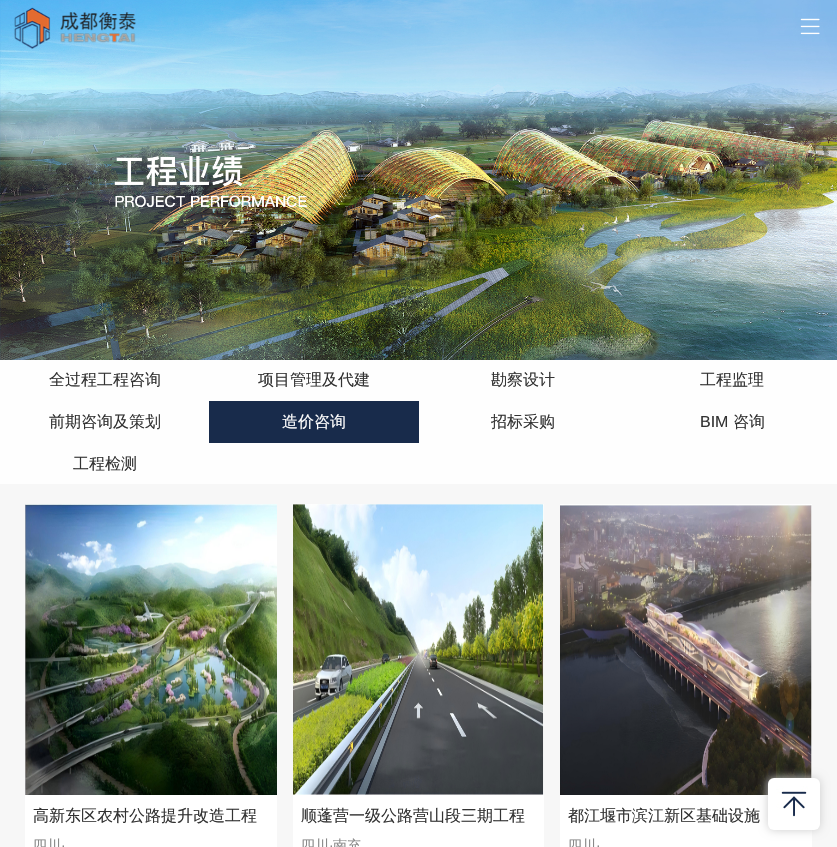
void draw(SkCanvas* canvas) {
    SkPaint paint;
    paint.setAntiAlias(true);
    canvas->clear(0xFFF7F7F7);
    canvas->drawImageRect(SkImages::DeferredFromEncodedData(SkData::MakeFromFileName("img1.png")), SkRect::MakeXYWH(0, 0, 837, 360), SkSamplingOptions());
    canvas->drawImageRect(SkImages::DeferredFromEncodedData(SkData::MakeFromFileName("img2.png")), SkRect::MakeXYWH(14, 7, 122, 42), SkSamplingOptions());
    canvas->drawImageRect(SkImages::DeferredFromEncodedData(SkData::MakeFromFileName("img3.png")), SkRect::MakeXYWH(800, 18, 20, 17), SkSamplingOptions());
    paint.setColor(0xFFFEFEFE);
    canvas->drawRect(SkRect::MakeXYWH(0, 360, 837, 124), paint);
    SkFont font1(fontMgr->matchFamilyStyle("WenQuanYi Zen Hei", SkFontStyle(500, SkFontStyle::kNormal_Width, SkFontStyle::kUpright_Slant)), 16);
    font1.setSubpixel(true);
    paint.setColor(0xFF333333);
    canvas->drawString("全过程工程咨询", 49, 385, font1, paint);
    canvas->drawString("项目管理及代建", 258, 385, font1, paint);
    canvas->drawString("勘察设计", 491, 385, font1, paint);
    canvas->drawString("工程监理", 700, 385, font1, paint);
    canvas->drawString("前期咨询及策划", 49, 427, font1, paint);
    paint.setColor(0xFF182B4B);
    canvas->drawRect(SkRect::MakeXYWH(209, 401, 210, 42), paint);
    paint.setColor(0xFFFFFFFF);
    canvas->drawString("造价咨询", 282, 427, font1, paint);
    paint.setColor(0xFF333333);
    canvas->drawString("招标采购", 491, 427, font1, paint);
    SkFont font2(fontMgr->matchFamilyStyle("Liberation Sans", SkFontStyle::Normal()), 16);
    font2.setSubpixel(true);
    canvas->drawString("BIM", 700, 427, font2, paint);
    canvas->drawString("咨询", 733, 427, font1, paint);
    canvas->drawString("工程检测", 73, 469, font1, paint);
    canvas->drawImageRect(SkImages::DeferredFromEncodedData(SkData::MakeFromFileName("img4.png")), SkRect::MakeXYWH(25, 504, 252, 291), SkSamplingOptions());
    paint.setColor(0xFFFFFFFF);
    canvas->drawRect(SkRect::MakeXYWH(25, 795, 252, 52), paint);
    paint.setColor(0xFF333333);
    canvas->drawString("高新东区农村公路提升改造工程", 33, 821, font1, paint);
    SkFont font3(fontMgr->matchFamilyStyle("WenQuanYi Zen Hei", SkFontStyle(500, SkFontStyle::kNormal_Width, SkFontStyle::kUpright_Slant)), 14);
    font3.setSubpixel(true);
    paint.setColor(0xFF888888);
    canvas->drawString("四川", 33, 850, font3, paint);
    SkFont font4(fontMgr->matchFamilyStyle("Liberation Sans", SkFontStyle::Normal()), 14);
    font4.setSubpixel(true);
    canvas->drawString("·", 61, 850, font4, paint);
    canvas->drawImageRect(SkImages::DeferredFromEncodedData(SkData::MakeFromFileName("img5.png")), SkRect::MakeXYWH(293, 504, 251, 291), SkSamplingOptions());
    paint.setColor(0xFFFFFFFF);
    canvas->drawRect(SkRect::MakeXYWH(293, 795, 251, 52), paint);
    paint.setColor(0xFF333333);
    canvas->drawString("顺蓬营一级公路营山段三期工程", 301, 821, font1, paint);
    paint.setColor(0xFF888888);
    canvas->drawString("四川", 301, 850, font3, paint);
    canvas->drawString("·", 329, 850, font4, paint);
    canvas->drawString("南充", 333, 850, font3, paint);
    canvas->drawImageRect(SkImages::DeferredFromEncodedData(SkData::MakeFromFileName("img6.png")), SkRect::MakeXYWH(560, 504, 252, 291), SkSamplingOptions());
    paint.setColor(0xFFFFFFFF);
    canvas->drawRect(SkRect::MakeXYWH(560, 795, 252, 52), paint);
    paint.setColor(0xFF333333);
    canvas->drawString("都江堰市滨江新区基础设施", 568, 821, font1, paint);
    paint.setColor(0xFF888888);
    canvas->drawString("四川", 568, 850, font3, paint);
    canvas->drawString("·", 596, 850, font4, paint);
    paint.setColor(0xFFCCCCCC);
    paint.setMaskFilter(SkMaskFilter::MakeBlur(kNormal_SkBlurStyle, 5));
    canvas->drawRoundRect(SkRect::MakeXYWH(768, 778, 52, 52), 6, 6, paint);
    paint.setMaskFilter(nullptr);
    canvas->drawImageRect(SkImages::DeferredFromEncodedData(SkData::MakeFromFileName("img7.png")), SkRect::MakeXYWH(768, 778, 52, 52), SkSamplingOptions());
}
